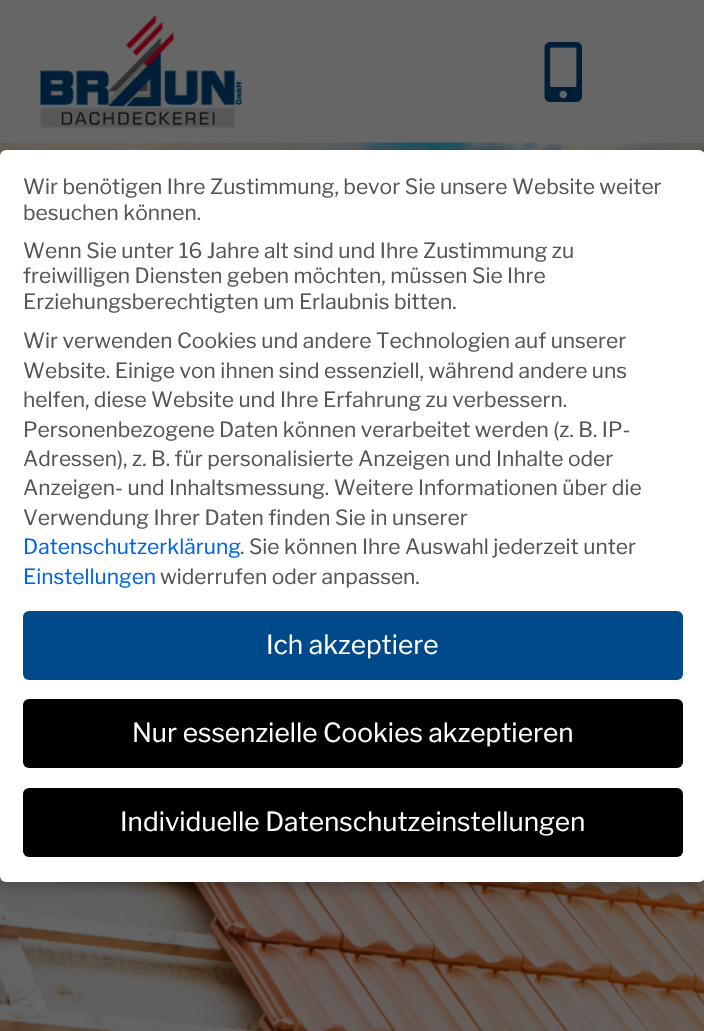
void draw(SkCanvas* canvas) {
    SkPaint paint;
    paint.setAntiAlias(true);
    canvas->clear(0xFF666666);
    canvas->drawImageRect(SkImages::DeferredFromEncodedData(SkData::MakeFromFileName("img1.png")), SkRect::MakeXYWH(40, 15, 202, 113), SkSamplingOptions());
    canvas->drawImageRect(SkImages::DeferredFromEncodedData(SkData::MakeFromFileName("img2.png")), SkRect::MakeXYWH(544, 42, 38, 60), SkSamplingOptions());
    canvas->drawImageRect(SkImages::DeferredFromEncodedData(SkData::MakeFromFileName("img3.png")), SkRect::MakeXYWH(0, 142, 704, 889), SkSamplingOptions());
    paint.setColor(0x33000000);
    paint.setMaskFilter(SkMaskFilter::MakeBlur(kNormal_SkBlurStyle, 6));
    canvas->drawRoundRect(SkRect::MakeXYWH(0, 156, 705, 732), 6, 6, paint);
    paint.setMaskFilter(nullptr);
    paint.setColor(0xFFFFFFFF);
    canvas->drawRoundRect(SkRect::MakeXYWH(0, 150, 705, 732), 6, 6, paint);
    SkFont font1(fontMgr->matchFamilyStyle("Libre Franklin", SkFontStyle::Normal()), 21);
    font1.setSubpixel(true);
    paint.setColor(0xFF555555);
    canvas->drawString("Wir benötigen Ihre Zustimmung, bevor Sie unsere Website weiter", 23, 194, font1, paint);
    canvas->drawString("besuchen können.", 23, 220, font1, paint);
    canvas->drawString("Wenn Sie unter 16 Jahre alt sind und Ihre Zustimmung zu", 23, 258, font1, paint);
    canvas->drawString("freiwilligen Diensten geben möchten, müssen Sie Ihre", 23, 283, font1, paint);
    canvas->drawString("Erziehungsberechtigten um Erlaubnis bitten.", 23, 309, font1, paint);
    canvas->drawString("Wir verwenden Cookies und andere Technologien auf unserer", 23, 348, font1, paint);
    canvas->drawString("Website. Einige von ihnen sind essenziell, während andere uns", 23, 378, font1, paint);
    canvas->drawString("helfen, diese Website und Ihre Erfahrung zu verbessern.", 23, 407, font1, paint);
    canvas->drawString("Personenbezogene Daten können verarbeitet werden (z. B. IP-", 23, 437, font1, paint);
    canvas->drawString("Adressen), z. B. für personalisierte Anzeigen und Inhalte oder", 23, 466, font1, paint);
    canvas->drawString("Anzeigen- und Inhaltsmessung. Weitere Informationen über die", 23, 495, font1, paint);
    canvas->drawString("Verwendung Ihrer Daten finden Sie in unserer", 23, 525, font1, paint);
    paint.setColor(0xFF0063E3);
    canvas->drawString("Datenschutzerklärung", 23, 554, font1, paint);
    paint.setColor(0xFF555555);
    canvas->drawString(". Sie können Ihre Auswahl jederzeit unter", 240, 554, font1, paint);
    paint.setColor(0xFF0063E3);
    canvas->drawString("Einstellungen", 23, 584, font1, paint);
    paint.setColor(0xFF555555);
    canvas->drawString("widerrufen oder anpassen.", 160, 584, font1, paint);
    paint.setColor(0xFF004A8B);
    canvas->drawRoundRect(SkRect::MakeXYWH(23, 611, 660, 69), 6, 6, paint);
    SkFont font2(fontMgr->matchFamilyStyle("Libre Franklin", SkFontStyle::Normal()), 26.25f);
    font2.setSubpixel(true);
    paint.setColor(0xFFFFFFFF);
    canvas->drawString("Ich akzeptiere", 266, 654, font2, paint);
    paint.setColor(0xFF000000);
    canvas->drawRoundRect(SkRect::MakeXYWH(23, 699, 660, 69), 6, 6, paint);
    paint.setColor(0xFFFFFFFF);
    canvas->drawString("Nur essenzielle Cookies akzeptieren", 132, 742, font2, paint);
    paint.setColor(0xFF000000);
    canvas->drawRoundRect(SkRect::MakeXYWH(23, 788, 660, 69), 6, 6, paint);
    paint.setColor(0xFFFFFFFF);
    canvas->drawString("Individuelle Datenschutzeinstellungen", 120, 831, font2, paint);
}
